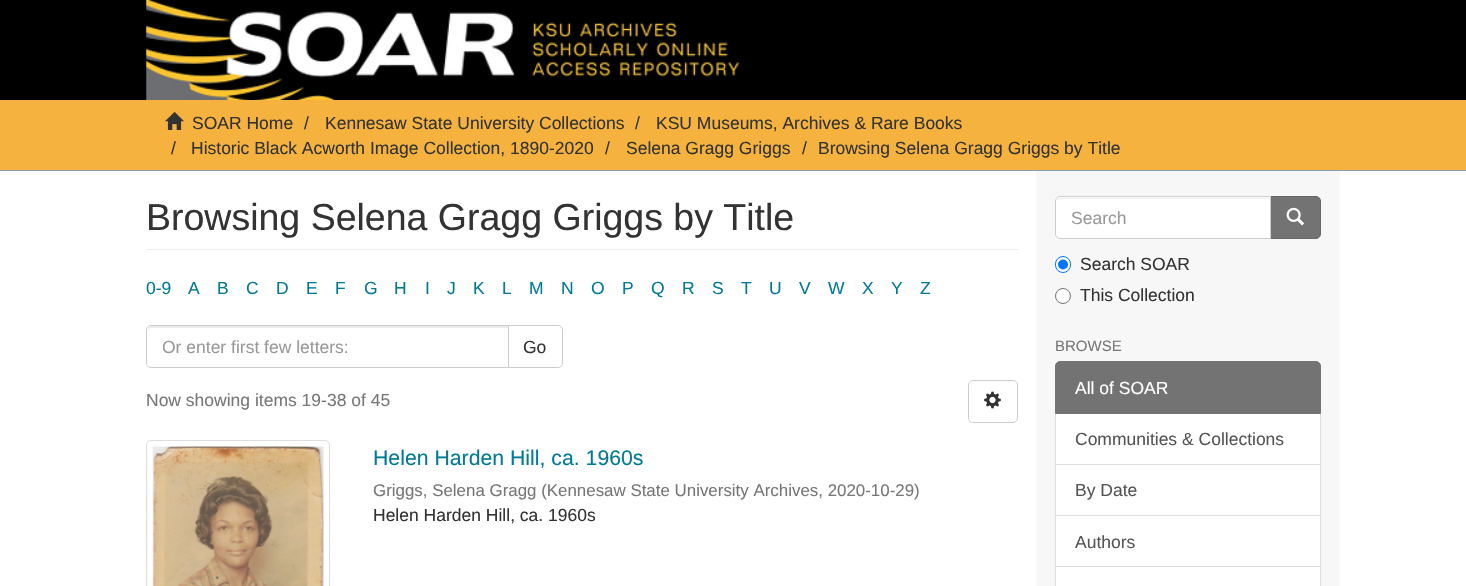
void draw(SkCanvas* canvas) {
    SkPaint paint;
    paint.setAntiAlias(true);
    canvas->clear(0xFFFFFFFF);
    paint.setColor(0xFF000000);
    canvas->drawRect(SkRect::MakeXYWH(0, 0, 1466, 100), paint);
    canvas->drawImageRect(SkImages::DeferredFromEncodedData(SkData::MakeFromFileName("img1.png")), SkRect::MakeXYWH(146, 0, 594, 100), SkSamplingOptions());
    paint.setColor(0xFFF5B23E);
    canvas->drawRect(SkRect::MakeXYWH(0, 100, 1466, 70), paint);
    paint.setColor(0xFF8B9EB2);
    canvas->drawRect(SkRect::MakeXYWH(0, 170, 1466, 1), paint);
    canvas->drawImageRect(SkImages::DeferredFromEncodedData(SkData::MakeFromFileName("img2.png")), SkRect::MakeXYWH(165, 111, 19, 19), SkSamplingOptions());
    SkFont font1(fontMgr->matchFamilyStyle("Liberation Sans", SkFontStyle::Normal()), 17.5f);
    font1.setSubpixel(true);
    paint.setColor(0xFF333333);
    canvas->drawString("SOAR Home", 192, 129, font1, paint);
    canvas->drawString("/", 304, 129, font1, paint);
    canvas->drawString("Kennesaw State University Collections", 325, 129, font1, paint);
    canvas->drawString("/", 635, 129, font1, paint);
    canvas->drawString("KSU Museums, Archives & Rare Books", 656, 129, font1, paint);
    canvas->drawString("/", 171, 154, font1, paint);
    canvas->drawString("Historic Black Acworth Image Collection, 1890-2020", 191, 154, font1, paint);
    canvas->drawString("/", 605, 154, font1, paint);
    canvas->drawString("Selena Gragg Griggs", 626, 154, font1, paint);
    canvas->drawString("/", 802, 154, font1, paint);
    canvas->drawString("Browsing Selena Gragg Griggs by Title", 818, 154, font1, paint);
    paint.setColor(0xFFF7F7F7);
    canvas->drawRect(SkRect::MakeXYWH(1036, 171, 304, 415), paint);
    paint.setColor(0xFFEEEEEE);
    canvas->drawRect(SkRect::MakeXYWH(146, 249, 872, 1), paint);
    SkFont font2(fontMgr->matchFamilyStyle("Liberation Sans", SkFontStyle::Normal()), 37.5f);
    font2.setSubpixel(true);
    paint.setColor(0xFF333333);
    canvas->drawString("Browsing Selena Gragg Griggs by Title", 146, 230, font2, paint);
    paint.setColor(0xFF007A95);
    canvas->drawString("0-9", 146, 294, font1, paint);
    canvas->drawString("A", 188, 294, font1, paint);
    canvas->drawString("B", 217, 294, font1, paint);
    canvas->drawString("C", 246, 294, font1, paint);
    canvas->drawString("D", 276, 294, font1, paint);
    canvas->drawString("E", 306, 294, font1, paint);
    canvas->drawString("F", 335, 294, font1, paint);
    canvas->drawString("G", 364, 294, font1, paint);
    canvas->drawString("H", 394, 294, font1, paint);
    canvas->drawString("I", 425, 294, font1, paint);
    canvas->drawString("J", 447, 294, font1, paint);
    canvas->drawString("K", 473, 294, font1, paint);
    canvas->drawString("L", 502, 294, font1, paint);
    canvas->drawString("M", 529, 294, font1, paint);
    canvas->drawString("N", 561, 294, font1, paint);
    canvas->drawString("O", 591, 294, font1, paint);
    canvas->drawString("P", 622, 294, font1, paint);
    canvas->drawString("Q", 651, 294, font1, paint);
    canvas->drawString("R", 682, 294, font1, paint);
    canvas->drawString("S", 712, 294, font1, paint);
    canvas->drawString("T", 741, 294, font1, paint);
    canvas->drawString("U", 769, 294, font1, paint);
    canvas->drawString("V", 799, 294, font1, paint);
    canvas->drawString("W", 828, 294, font1, paint);
    canvas->drawString("X", 862, 294, font1, paint);
    canvas->drawString("Y", 891, 294, font1, paint);
    canvas->drawString("Z", 920, 294, font1, paint);
    paint.setStyle(SkPaint::kStroke_Style);
    paint.setStrokeWidth(1);
    paint.setColor(0xFFCCCCCC);
    canvas->drawPath(SkPathBuilder().moveTo(508.5f, 325.5f).lineTo(558, 325.5f).cubicTo(560.5f, 325.5f, 562.5f, 327.5f, 562.5f, 330).lineTo(562.5f, 363).cubicTo(562.5f, 365.5f, 560.5f, 367.5f, 558, 367.5f).lineTo(508.5f, 367.5f).close().detach(), paint);
    paint.setStyle(SkPaint::kFill_Style);
    paint.setColor(0xFFFFFFFF);
    canvas->drawPath(SkPathBuilder().moveTo(151, 325).lineTo(509, 325).lineTo(509, 368).lineTo(151, 368).cubicTo(148, 368, 146, 366, 146, 363).lineTo(146, 330).cubicTo(146, 327, 148, 325, 151, 325).close().detach(), paint);
    paint.setColor(0xFFECECEC);
    canvas->drawPath(SkPathBuilder().moveTo(151, 328).lineTo(508, 328).lineTo(508, 326).lineTo(152, 326).cubicTo(149, 326, 148, 328, 148, 331).cubicTo(148, 329, 149, 328, 151, 328).close().detach(), paint);
    paint.setStyle(SkPaint::kStroke_Style);
    paint.setColor(0xFFCCCCCC);
    canvas->drawPath(SkPathBuilder().moveTo(151, 325.5f).lineTo(508.5f, 325.5f).lineTo(508.5f, 367.5f).lineTo(151, 367.5f).cubicTo(148.5f, 367.5f, 146.5f, 365.5f, 146.5f, 363).lineTo(146.5f, 330).cubicTo(146.5f, 327.5f, 148.5f, 325.5f, 151, 325.5f).close().detach(), paint);
    canvas->save();
    canvas->clipRect(SkRect::MakeXYWH(163, 336, 330, 20));
    paint.setStyle(SkPaint::kFill_Style);
    paint.setColor(0xFF999999);
    canvas->drawString("Or enter first few letters:", 162, 353, font1, paint);
    canvas->restore();
    paint.setColor(0xFF333333);
    canvas->drawString("Go", 523, 353, font1, paint);
    paint.setColor(0xFF777777);
    canvas->drawString("Now showing items 19-38 of 45", 146, 406, font1, paint);
    paint.setStyle(SkPaint::kStroke_Style);
    paint.setColor(0xFFCCCCCC);
    canvas->drawRoundRect(SkRect::MakeXYWH(968.5f, 380.5f, 49, 42), 4.5f, 4.5f, paint);
    canvas->drawImageRect(SkImages::DeferredFromEncodedData(SkData::MakeFromFileName("img3.png")), SkRect::MakeXYWH(984, 391, 17, 18), SkSamplingOptions());
    paint.setColor(0xFFDDDDDD);
    canvas->drawRoundRect(SkRect::MakeXYWH(146.5f, 440.5f, 183, 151), 4.5f, 4.5f, paint);
    canvas->drawImageRect(SkImages::DeferredFromEncodedData(SkData::MakeFromFileName("img4.png")), SkRect::MakeXYWH(152, 446, 172, 140), SkSamplingOptions());
    SkFont font3(fontMgr->matchFamilyStyle("Liberation Sans", SkFontStyle::Normal()), 21.25f);
    font3.setSubpixel(true);
    paint.setStyle(SkPaint::kFill_Style);
    paint.setColor(0xFF007A95);
    canvas->drawString("Helen Harden Hill, ca. 1960s", 373, 465, font3, paint);
    SkFont font4(fontMgr->matchFamilyStyle("Liberation Sans", SkFontStyle::Normal()), 16.9f);
    font4.setSubpixel(true);
    paint.setColor(0xFF777777);
    canvas->drawString("Griggs, Selena Gragg (Kennesaw State University Archives, 2020-10-29)", 373, 496, font4, paint);
    paint.setColor(0xFF333333);
    canvas->drawString("Helen Harden Hill, ca. 1960s", 373, 521, font1, paint);
    paint.setColor(0xFF737373);
    canvas->drawPath(SkPathBuilder().moveTo(1270.5f, 196.5f).lineTo(1316, 196.5f).cubicTo(1318.5f, 196.5f, 1320.5f, 198.5f, 1320.5f, 201).lineTo(1320.5f, 234).cubicTo(1320.5f, 236.5f, 1318.5f, 238.5f, 1316, 238.5f).lineTo(1270.5f, 238.5f).close().detach(), paint);
    paint.setStyle(SkPaint::kStroke_Style);
    paint.setColor(0xFF666666);
    canvas->drawPath(SkPathBuilder().moveTo(1270.5f, 196.5f).lineTo(1316, 196.5f).cubicTo(1318.5f, 196.5f, 1320.5f, 198.5f, 1320.5f, 201).lineTo(1320.5f, 234).cubicTo(1320.5f, 236.5f, 1318.5f, 238.5f, 1316, 238.5f).lineTo(1270.5f, 238.5f).close().detach(), paint);
    paint.setStyle(SkPaint::kFill_Style);
    paint.setColor(0xFFFFFFFF);
    canvas->drawPath(SkPathBuilder().moveTo(1060, 196).lineTo(1271, 196).lineTo(1271, 239).lineTo(1060, 239).cubicTo(1057, 239, 1055, 237, 1055, 234).lineTo(1055, 201).cubicTo(1055, 198, 1057, 196, 1060, 196).close().detach(), paint);
    paint.setColor(0xFFECECEC);
    canvas->drawPath(SkPathBuilder().moveTo(1060, 199).lineTo(1270, 199).lineTo(1270, 198).lineTo(1060, 198).cubicTo(1058, 198, 1056, 200, 1056, 202).cubicTo(1056, 200, 1058, 199, 1060, 199).close().detach(), paint);
    paint.setStyle(SkPaint::kStroke_Style);
    paint.setColor(0xFFCCCCCC);
    canvas->drawPath(SkPathBuilder().moveTo(1060, 196.5f).lineTo(1270.5f, 196.5f).lineTo(1270.5f, 238.5f).lineTo(1060, 238.5f).cubicTo(1057.5f, 238.5f, 1055.5f, 236.5f, 1055.5f, 234).lineTo(1055.5f, 201).cubicTo(1055.5f, 198.5f, 1057.5f, 196.5f, 1060, 196.5f).close().detach(), paint);
    paint.setStyle(SkPaint::kFill_Style);
    paint.setColor(0xFF999999);
    canvas->drawString("Search", 1071, 224, font1, paint);
    canvas->drawImageRect(SkImages::DeferredFromEncodedData(SkData::MakeFromFileName("img5.png")), SkRect::MakeXYWH(1286, 207, 18, 19), SkSamplingOptions());
    paint.setColor(0xFFFFFFFF);
    canvas->drawRoundRect(SkRect::MakeXYWH(1055.5f, 256.5f, 15, 16), 7.5f, 7.5f, paint);
    paint.setStyle(SkPaint::kStroke_Style);
    paint.setColor(0xFF0075FF);
    canvas->drawRoundRect(SkRect::MakeXYWH(1055.5f, 256.5f, 15, 16), 7.5f, 7.5f, paint);
    paint.setStyle(SkPaint::kFill_Style);
    canvas->drawCircle(1063, 264.5f, 5, paint);
    paint.setColor(0xFF333333);
    canvas->drawString("Search SOAR", 1080, 270, font1, paint);
    paint.setColor(0xFFFFFFFF);
    canvas->drawCircle(1063, 296, 7.5f, paint);
    paint.setStyle(SkPaint::kStroke_Style);
    paint.setColor(0xFF767676);
    canvas->drawCircle(1063, 296, 7.5f, paint);
    paint.setStyle(SkPaint::kFill_Style);
    paint.setColor(0xFF333333);
    canvas->drawString("This Collection", 1080, 301, font1, paint);
    SkFont font5(fontMgr->matchFamilyStyle("Liberation Sans", SkFontStyle::Normal()), 15);
    font5.setSubpixel(true);
    paint.setColor(0xFF777777);
    canvas->drawString("BROWSE", 1055, 351, font5, paint);
    paint.setColor(0xFFFFFFFF);
    canvas->drawRect(SkRect::MakeXYWH(1055.5f, 413.5f, 265, 51), paint);
    paint.setStyle(SkPaint::kStroke_Style);
    paint.setColor(0xFFDDDDDD);
    canvas->drawRect(SkRect::MakeXYWH(1055.5f, 413.5f, 265, 51), paint);
    paint.setStyle(SkPaint::kFill_Style);
    paint.setColor(0xFF737373);
    canvas->drawPath(SkPathBuilder().moveTo(1060, 361.5f).lineTo(1316, 361.5f).cubicTo(1318.5f, 361.5f, 1320.5f, 363.5f, 1320.5f, 366).lineTo(1320.5f, 413.5f).lineTo(1055.5f, 413.5f).lineTo(1055.5f, 366).cubicTo(1055.5f, 363.5f, 1057.5f, 361.5f, 1060, 361.5f).close().detach(), paint);
    paint.setStyle(SkPaint::kStroke_Style);
    canvas->drawPath(SkPathBuilder().moveTo(1060, 361.5f).lineTo(1316, 361.5f).cubicTo(1318.5f, 361.5f, 1320.5f, 363.5f, 1320.5f, 366).lineTo(1320.5f, 413.5f).lineTo(1055.5f, 413.5f).lineTo(1055.5f, 366).cubicTo(1055.5f, 363.5f, 1057.5f, 361.5f, 1060, 361.5f).close().detach(), paint);
    paint.setStyle(SkPaint::kFill_Style);
    paint.setColor(0xFFFFFFFF);
    canvas->drawString("All of SOAR", 1075, 394, font1, paint);
    paint.setColor(0xFF555555);
    canvas->drawString("Communities & Collections", 1075, 445, font1, paint);
    paint.setColor(0xFFFFFFFF);
    canvas->drawRect(SkRect::MakeXYWH(1055.5f, 464.5f, 265, 51), paint);
    paint.setStyle(SkPaint::kStroke_Style);
    paint.setColor(0xFFDDDDDD);
    canvas->drawRect(SkRect::MakeXYWH(1055.5f, 464.5f, 265, 51), paint);
    paint.setStyle(SkPaint::kFill_Style);
    paint.setColor(0xFF555555);
    canvas->drawString("By Date", 1075, 496, font1, paint);
    paint.setColor(0xFFFFFFFF);
    canvas->drawRect(SkRect::MakeXYWH(1056, 516, 264, 50), paint);
    paint.setStyle(SkPaint::kStroke_Style);
    paint.setColor(0xFFDDDDDD);
    canvas->drawRect(SkRect::MakeXYWH(1055.5f, 515.5f, 265, 52), paint);
    paint.setStyle(SkPaint::kFill_Style);
    paint.setColor(0xFF555555);
    canvas->drawString("Authors", 1075, 548, font1, paint);
    paint.setColor(0xFFFFFFFF);
    canvas->drawRect(SkRect::MakeXYWH(1055.5f, 566.5f, 265, 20), paint);
    paint.setStyle(SkPaint::kStroke_Style);
    paint.setColor(0xFFDDDDDD);
    canvas->drawRect(SkRect::MakeXYWH(1055.5f, 566.5f, 265, 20), paint);
}
